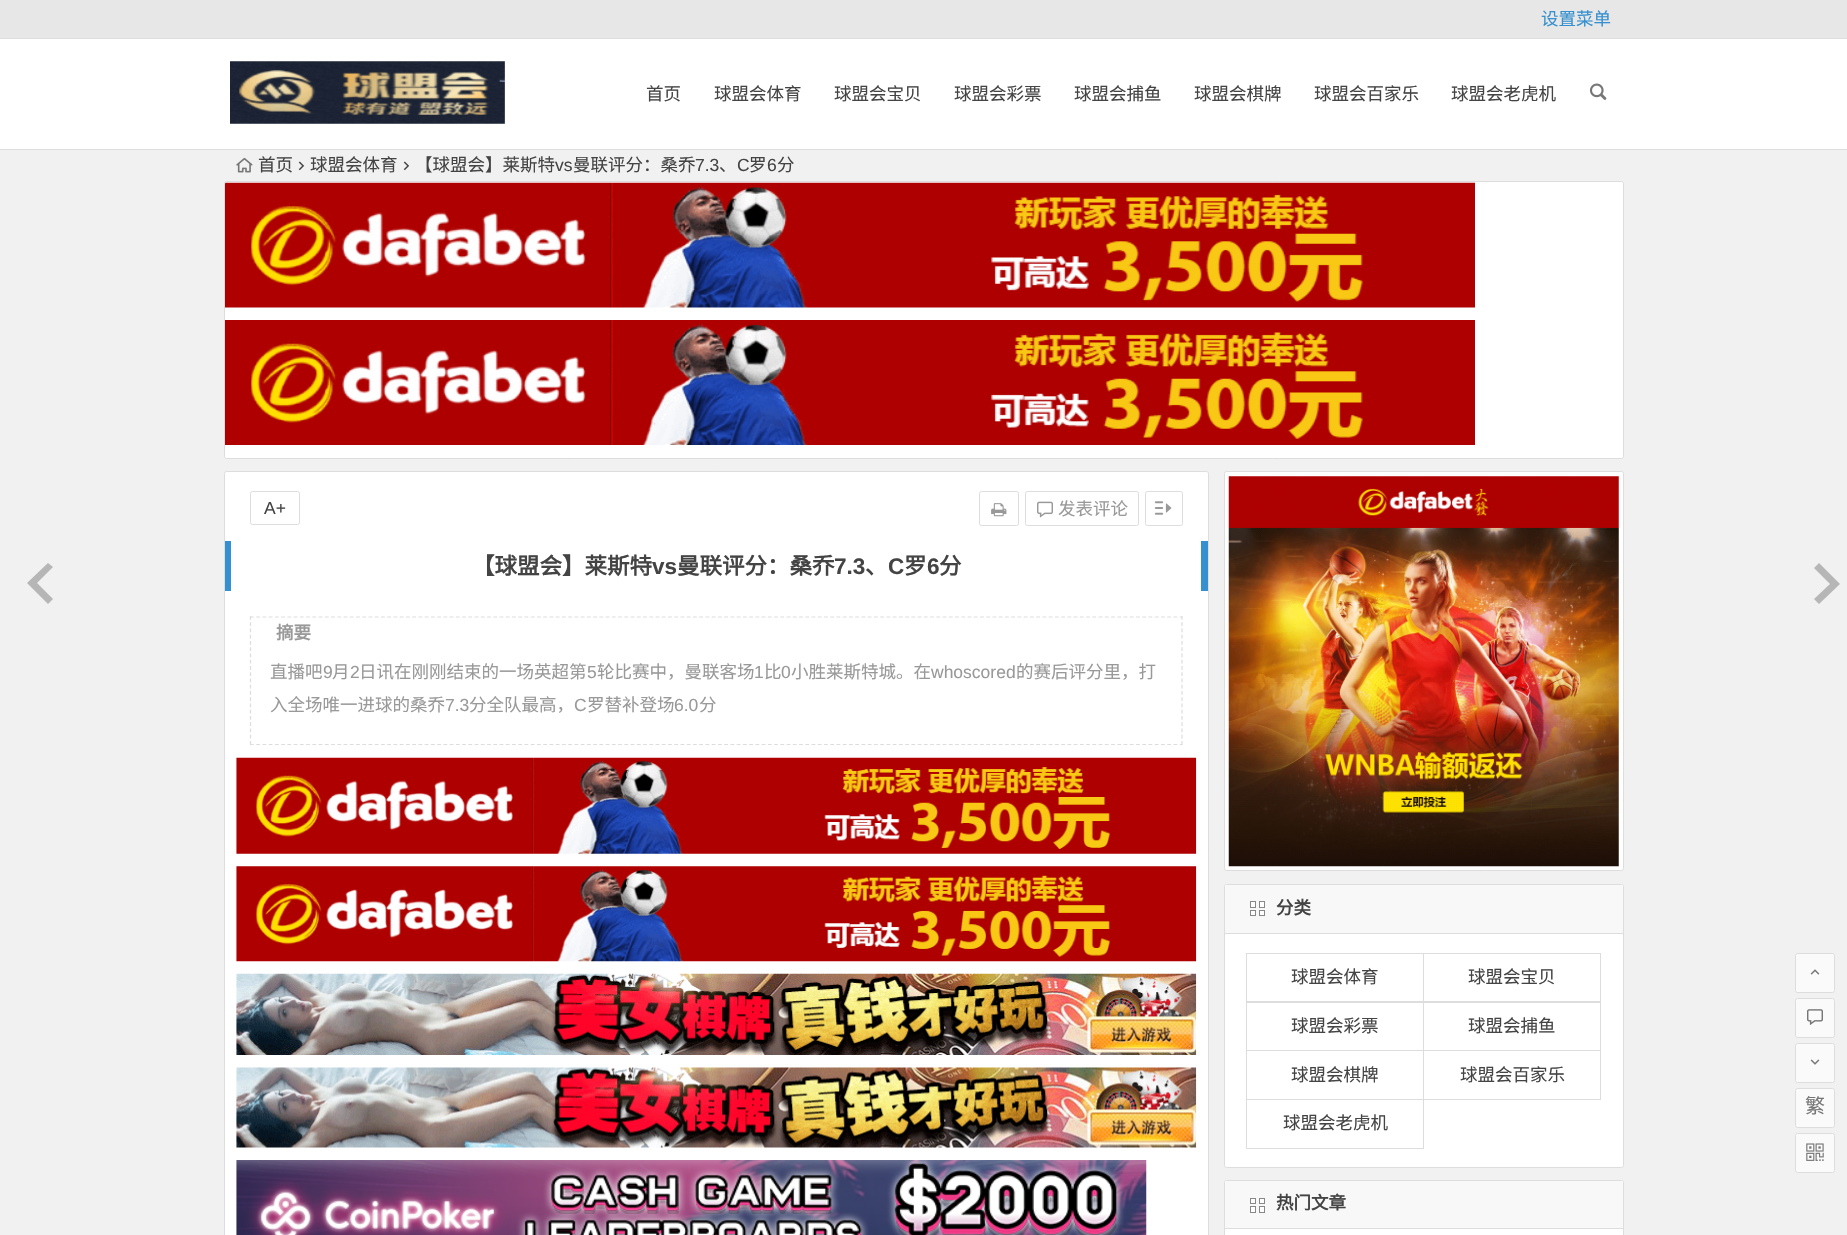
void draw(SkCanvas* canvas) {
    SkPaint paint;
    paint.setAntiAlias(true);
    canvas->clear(0xFFF1F1F1);
    paint.setColor(0xFFE7E7E7);
    canvas->drawRect(SkRect::MakeXYWH(0, 0, 1847, 38), paint);
    paint.setColor(0xFFDEDEDE);
    canvas->drawRect(SkRect::MakeXYWH(0, 38, 1847, 1), paint);
    SkFont font1(fontMgr->matchFamilyStyle("Noto Sans CJK SC", SkFontStyle::Normal()), 17.5f);
    font1.setSubpixel(true);
    paint.setColor(0xFF3690CF);
    canvas->drawString("设置菜单", 1541, 25, font1, paint);
    paint.setColor(0xFFFFFFFF);
    canvas->drawRect(SkRect::MakeXYWH(0, 39, 1847, 110), paint);
    paint.setColor(0xFFDDDDDD);
    canvas->drawRect(SkRect::MakeXYWH(0, 149, 1847, 1), paint);
    canvas->drawImageRect(SkImages::DeferredFromEncodedData(SkData::MakeFromFileName("img1.png")), SkRect::MakeXYWH(230, 61, 275, 63), SkSamplingOptions());
    paint.setColor(0xFF444444);
    canvas->drawString("首页", 646, 100, font1, paint);
    canvas->drawString("球盟会体育", 714, 100, font1, paint);
    canvas->drawString("球盟会宝贝", 834, 100, font1, paint);
    canvas->drawString("球盟会彩票", 954, 100, font1, paint);
    canvas->drawString("球盟会捕鱼", 1074, 100, font1, paint);
    canvas->drawString("球盟会棋牌", 1194, 100, font1, paint);
    canvas->drawString("球盟会百家乐", 1314, 100, font1, paint);
    canvas->drawString("球盟会老虎机", 1451, 100, font1, paint);
    canvas->drawImageRect(SkImages::DeferredFromEncodedData(SkData::MakeFromFileName("img2.png")), SkRect::MakeXYWH(1589, 83, 18, 17), SkSamplingOptions());
    canvas->drawImageRect(SkImages::DeferredFromEncodedData(SkData::MakeFromFileName("img3.png")), SkRect::MakeXYWH(236, 157, 17, 16), SkSamplingOptions());
    canvas->drawString("首页", 258, 171, font1, paint);
    canvas->drawImageRect(SkImages::DeferredFromEncodedData(SkData::MakeFromFileName("img4.png")), SkRect::MakeXYWH(298, 161, 7, 10), SkSamplingOptions());
    canvas->drawString("球盟会体育", 310, 171, font1, paint);
    canvas->drawImageRect(SkImages::DeferredFromEncodedData(SkData::MakeFromFileName("img4.png")), SkRect::MakeXYWH(403, 161, 7, 10), SkSamplingOptions());
    canvas->drawString("【球盟会】莱斯特", 415, 171, font1, paint);
    SkFont font2(fontMgr->matchFamilyStyle("Liberation Sans", SkFontStyle::Normal()), 17.5f);
    font2.setSubpixel(true);
    canvas->drawString("vs", 555, 171, font2, paint);
    canvas->drawString("曼联评分：桑乔", 573, 171, font1, paint);
    canvas->drawString("7.3", 695, 171, font2, paint);
    canvas->drawString("、", 719, 171, font1, paint);
    canvas->drawString("C", 737, 171, font2, paint);
    canvas->drawString("罗", 749, 171, font1, paint);
    canvas->drawString("6", 767, 171, font2, paint);
    canvas->drawString("分", 777, 171, font1, paint);
    paint.setColor(0xFFFFFFFF);
    canvas->drawRoundRect(SkRect::MakeXYWH(224.5f, 181.5f, 1399, 277), 2, 2, paint);
    paint.setStyle(SkPaint::kStroke_Style);
    paint.setStrokeWidth(1);
    paint.setColor(0xFFDDDDDD);
    canvas->drawRoundRect(SkRect::MakeXYWH(224.5f, 181.5f, 1399, 277), 2, 2, paint);
    canvas->drawImageRect(SkImages::DeferredFromEncodedData(SkData::MakeFromFileName("img5.png")), SkRect::MakeXYWH(225, 182, 1250, 126), SkSamplingOptions());
    canvas->drawImageRect(SkImages::DeferredFromEncodedData(SkData::MakeFromFileName("img6.png")), SkRect::MakeXYWH(225, 320, 1250, 125), SkSamplingOptions());
    paint.setStyle(SkPaint::kFill_Style);
    paint.setColor(0xFFFFFFFF);
    canvas->drawRoundRect(SkRect::MakeXYWH(224.5f, 471.5f, 984, 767), 2, 2, paint);
    paint.setStyle(SkPaint::kStroke_Style);
    paint.setColor(0xFFDDDDDD);
    canvas->drawRoundRect(SkRect::MakeXYWH(224.5f, 471.5f, 984, 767), 2, 2, paint);
    canvas->drawRoundRect(SkRect::MakeXYWH(250.5f, 491.5f, 49, 33), 2, 2, paint);
    paint.setStyle(SkPaint::kFill_Style);
    paint.setColor(0xFF444444);
    canvas->drawString("A+", 264, 514, font2, paint);
    paint.setStyle(SkPaint::kStroke_Style);
    paint.setColor(0xFFDDDDDD);
    canvas->drawRoundRect(SkRect::MakeXYWH(979.5f, 491.5f, 39, 34), 2, 2, paint);
    canvas->drawImageRect(SkImages::DeferredFromEncodedData(SkData::MakeFromFileName("img7.png")), SkRect::MakeXYWH(991, 503, 16, 14), SkSamplingOptions());
    canvas->drawRoundRect(SkRect::MakeXYWH(1025.5f, 491.5f, 113, 34), 2, 2, paint);
    canvas->drawImageRect(SkImages::DeferredFromEncodedData(SkData::MakeFromFileName("img8.png")), SkRect::MakeXYWH(1037, 501, 16, 17), SkSamplingOptions());
    paint.setStyle(SkPaint::kFill_Style);
    paint.setColor(0xFF999999);
    canvas->drawString("发表评论", 1058, 515, font1, paint);
    paint.setStyle(SkPaint::kStroke_Style);
    paint.setColor(0xFFDDDDDD);
    canvas->drawRoundRect(SkRect::MakeXYWH(1145.5f, 491.5f, 37, 34), 2, 2, paint);
    canvas->drawImageRect(SkImages::DeferredFromEncodedData(SkData::MakeFromFileName("img9.png")), SkRect::MakeXYWH(1154, 501, 18, 14), SkSamplingOptions());
    paint.setStrokeWidth(1.2f);
    paint.setPathEffect(SkDashPathEffect::Make({{3.75f, 2.49f}}, 0));
    canvas->drawPath(SkPathBuilder().moveTo(250, 617).lineTo(1182.5f, 617).detach(), paint);
    paint.setPathEffect(nullptr);
    paint.setPathEffect(SkDashPathEffect::Make({{3.75f, 2.5f}}, 0));
    canvas->drawPath(SkPathBuilder().moveTo(1182, 616).lineTo(1182, 745).detach(), paint);
    paint.setPathEffect(nullptr);
    paint.setPathEffect(SkDashPathEffect::Make({{3.75f, 2.49f}}, 0));
    canvas->drawPath(SkPathBuilder().moveTo(250, 744.5f).lineTo(1182.5f, 744.5f).detach(), paint);
    paint.setPathEffect(nullptr);
    paint.setPathEffect(SkDashPathEffect::Make({{3.75f, 2.5f}}, 0));
    canvas->drawPath(SkPathBuilder().moveTo(250.5f, 616).lineTo(250.5f, 745).detach(), paint);
    paint.setPathEffect(nullptr);
    SkFont font3(fontMgr->matchFamilyStyle("Noto Sans CJK SC", SkFontStyle::Bold()), 17.5f);
    font3.setSubpixel(true);
    paint.setStyle(SkPaint::kFill_Style);
    paint.setColor(0xFF999999);
    canvas->drawString("摘要", 276, 639, font3, paint);
    canvas->drawString("直播吧", 270, 678, font1, paint);
    canvas->drawString("9", 323, 678, font2, paint);
    canvas->drawString("月", 332, 678, font1, paint);
    canvas->drawString("2", 350, 678, font2, paint);
    canvas->drawString("日讯在刚刚结束的一场英超第", 359, 678, font1, paint);
    canvas->drawString("5", 587, 678, font2, paint);
    canvas->drawString("轮比赛中，曼联客场", 597, 678, font1, paint);
    canvas->drawString("1", 754, 678, font2, paint);
    canvas->drawString("比", 764, 678, font1, paint);
    canvas->drawString("0", 781, 678, font2, paint);
    canvas->drawString("小胜莱斯特城。在", 791, 678, font1, paint);
    canvas->drawString("whoscored", 931, 678, font2, paint);
    canvas->drawString("的赛后评分里，打", 1016, 678, font1, paint);
    canvas->drawString("入全场唯一进球的桑乔", 270, 711, font1, paint);
    canvas->drawString("7.3", 445, 711, font2, paint);
    canvas->drawString("分全队最高，", 469, 711, font1, paint);
    canvas->drawString("C", 574, 711, font2, paint);
    canvas->drawString("罗替补登场", 587, 711, font1, paint);
    canvas->drawString("6.0", 674, 711, font2, paint);
    canvas->drawString("分", 699, 711, font1, paint);
    canvas->drawImageRect(SkImages::DeferredFromEncodedData(SkData::MakeFromFileName("img10.png")), SkRect::MakeXYWH(236, 757, 961, 97), SkSamplingOptions());
    canvas->drawImageRect(SkImages::DeferredFromEncodedData(SkData::MakeFromFileName("img11.png")), SkRect::MakeXYWH(236, 866, 961, 96), SkSamplingOptions());
    canvas->drawImageRect(SkImages::DeferredFromEncodedData(SkData::MakeFromFileName("img12.png")), SkRect::MakeXYWH(236, 973, 961, 82), SkSamplingOptions());
    canvas->drawImageRect(SkImages::DeferredFromEncodedData(SkData::MakeFromFileName("img13.png")), SkRect::MakeXYWH(236, 1067, 961, 81), SkSamplingOptions());
    canvas->drawImageRect(SkImages::DeferredFromEncodedData(SkData::MakeFromFileName("img14.png")), SkRect::MakeXYWH(236, 1160, 911, 75), SkSamplingOptions());
    paint.setColor(0xFF3690CF);
    canvas->drawRect(SkRect::MakeXYWH(1201, 541, 7, 50), paint);
    canvas->drawRect(SkRect::MakeXYWH(225, 541, 6, 50), paint);
    SkFont font4(fontMgr->matchFamilyStyle("Noto Sans CJK SC", SkFontStyle::Bold()), 22.5f);
    font4.setSubpixel(true);
    paint.setColor(0xFF444444);
    canvas->drawString("【球盟会】莱斯特", 472, 574, font4, paint);
    SkFont font5(fontMgr->matchFamilyStyle("Liberation Sans", SkFontStyle::Bold()), 22.5f);
    font5.setSubpixel(true);
    canvas->drawString("vs", 652, 574, font5, paint);
    canvas->drawString("曼联评分：桑乔", 677, 574, font4, paint);
    canvas->drawString("7.3", 834, 574, font5, paint);
    canvas->drawString("、", 865, 574, font4, paint);
    canvas->drawString("C", 888, 574, font5, paint);
    canvas->drawString("罗", 904, 574, font4, paint);
    canvas->drawString("6", 927, 574, font5, paint);
    canvas->drawString("分", 939, 574, font4, paint);
    paint.setColor(0xFFB6B6B6);
    canvas->drawPath(SkPathBuilder().moveTo(53, 599).lineTo(37, 583).lineTo(53, 567).lineTo(48, 563).lineTo(27, 583).lineTo(48, 604).close().detach(), paint);
    canvas->drawPath(SkPathBuilder().moveTo(1814, 599).lineTo(1830, 584).lineTo(1814, 568).lineTo(1819, 563).lineTo(1840, 584).lineTo(1819, 604).close().detach(), paint);
    paint.setColor(0xFFFFFFFF);
    canvas->drawRoundRect(SkRect::MakeXYWH(1224.5f, 471.5f, 399, 399), 2, 2, paint);
    paint.setStyle(SkPaint::kStroke_Style);
    paint.setStrokeWidth(1);
    paint.setColor(0xFFDDDDDD);
    canvas->drawRoundRect(SkRect::MakeXYWH(1224.5f, 471.5f, 399, 399), 2, 2, paint);
    canvas->drawImageRect(SkImages::DeferredFromEncodedData(SkData::MakeFromFileName("img15.png")), SkRect::MakeXYWH(1228, 476, 391, 391), SkSamplingOptions());
    paint.setStyle(SkPaint::kFill_Style);
    paint.setColor(0xFFFFFFFF);
    canvas->drawRoundRect(SkRect::MakeXYWH(1224.5f, 884.5f, 399, 283), 2, 2, paint);
    paint.setStyle(SkPaint::kStroke_Style);
    paint.setColor(0xFFDDDDDD);
    canvas->drawRoundRect(SkRect::MakeXYWH(1224.5f, 884.5f, 399, 283), 2, 2, paint);
    paint.setStyle(SkPaint::kFill_Style);
    paint.setColor(0xFFF8F8F8);
    canvas->drawRect(SkRect::MakeXYWH(1225, 885, 398, 48), paint);
    paint.setColor(0xFFDDDDDD);
    canvas->drawRect(SkRect::MakeXYWH(1225, 933, 398, 1), paint);
    paint.setColor(0xFFFFFFFF);
    canvas->drawRect(SkRect::MakeXYWH(1250.5f, 901.5f, 5, 6), paint);
    paint.setStyle(SkPaint::kStroke_Style);
    paint.setColor(0xFF888888);
    canvas->drawRect(SkRect::MakeXYWH(1250.5f, 901.5f, 5, 6), paint);
    paint.setStyle(SkPaint::kFill_Style);
    paint.setColor(0xFFFFFFFF);
    canvas->drawRect(SkRect::MakeXYWH(1259.5f, 901.5f, 5, 6), paint);
    paint.setStyle(SkPaint::kStroke_Style);
    paint.setColor(0xFF888888);
    canvas->drawRect(SkRect::MakeXYWH(1259.5f, 901.5f, 5, 6), paint);
    paint.setStyle(SkPaint::kFill_Style);
    paint.setColor(0xFFFFFFFF);
    canvas->drawRect(SkRect::MakeXYWH(1250.5f, 910.5f, 5, 5), paint);
    paint.setStyle(SkPaint::kStroke_Style);
    paint.setColor(0xFF888888);
    canvas->drawRect(SkRect::MakeXYWH(1250.5f, 910.5f, 5, 5), paint);
    paint.setStyle(SkPaint::kFill_Style);
    paint.setColor(0xFFFFFFFF);
    canvas->drawRect(SkRect::MakeXYWH(1259.5f, 910.5f, 5, 5), paint);
    paint.setStyle(SkPaint::kStroke_Style);
    paint.setColor(0xFF888888);
    canvas->drawRect(SkRect::MakeXYWH(1259.5f, 910.5f, 5, 5), paint);
    paint.setStyle(SkPaint::kFill_Style);
    paint.setColor(0xFF444444);
    canvas->drawString("分类", 1276, 914, font3, paint);
    paint.setStyle(SkPaint::kStroke_Style);
    paint.setColor(0xFFDDDDDD);
    canvas->drawRect(SkRect::MakeXYWH(1246.5f, 953.5f, 177, 49), paint);
    paint.setStyle(SkPaint::kFill_Style);
    paint.setColor(0xFF444444);
    canvas->drawString("球盟会体育", 1291, 983, font1, paint);
    paint.setStyle(SkPaint::kStroke_Style);
    paint.setColor(0xFFDDDDDD);
    canvas->drawRect(SkRect::MakeXYWH(1423.5f, 953.5f, 177, 49), paint);
    paint.setStyle(SkPaint::kFill_Style);
    paint.setColor(0xFF444444);
    canvas->drawString("球盟会宝贝", 1468, 983, font1, paint);
    paint.setStyle(SkPaint::kStroke_Style);
    paint.setColor(0xFFDDDDDD);
    canvas->drawRect(SkRect::MakeXYWH(1246.5f, 1001.5f, 177, 49), paint);
    paint.setStyle(SkPaint::kFill_Style);
    paint.setColor(0xFF444444);
    canvas->drawString("球盟会彩票", 1291, 1032, font1, paint);
    paint.setStyle(SkPaint::kStroke_Style);
    paint.setColor(0xFFDDDDDD);
    canvas->drawRect(SkRect::MakeXYWH(1423.5f, 1001.5f, 177, 49), paint);
    paint.setStyle(SkPaint::kFill_Style);
    paint.setColor(0xFF444444);
    canvas->drawString("球盟会捕鱼", 1468, 1032, font1, paint);
    paint.setStyle(SkPaint::kStroke_Style);
    paint.setColor(0xFFDDDDDD);
    canvas->drawRect(SkRect::MakeXYWH(1246.5f, 1050.5f, 177, 49), paint);
    paint.setStyle(SkPaint::kFill_Style);
    paint.setColor(0xFF444444);
    canvas->drawString("球盟会棋牌", 1291, 1081, font1, paint);
    paint.setStyle(SkPaint::kStroke_Style);
    paint.setColor(0xFFDDDDDD);
    canvas->drawRect(SkRect::MakeXYWH(1423.5f, 1050.5f, 177, 49), paint);
    paint.setStyle(SkPaint::kFill_Style);
    paint.setColor(0xFF444444);
    canvas->drawString("球盟会百家乐", 1460, 1081, font1, paint);
    paint.setStyle(SkPaint::kStroke_Style);
    paint.setColor(0xFFDDDDDD);
    canvas->drawRect(SkRect::MakeXYWH(1246.5f, 1099.5f, 177, 49), paint);
    paint.setStyle(SkPaint::kFill_Style);
    paint.setColor(0xFF444444);
    canvas->drawString("球盟会老虎机", 1283, 1129, font1, paint);
    paint.setColor(0xFFFFFFFF);
    canvas->drawRoundRect(SkRect::MakeXYWH(1224.5f, 1180.5f, 399, 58), 2, 2, paint);
    paint.setStyle(SkPaint::kStroke_Style);
    paint.setColor(0xFFDDDDDD);
    canvas->drawRoundRect(SkRect::MakeXYWH(1224.5f, 1180.5f, 399, 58), 2, 2, paint);
    paint.setStyle(SkPaint::kFill_Style);
    paint.setColor(0xFFF8F8F8);
    canvas->drawRect(SkRect::MakeXYWH(1225, 1181, 398, 47), paint);
    paint.setColor(0xFFDDDDDD);
    canvas->drawRect(SkRect::MakeXYWH(1225, 1228, 398, 1), paint);
    paint.setColor(0xFFFFFFFF);
    canvas->drawRect(SkRect::MakeXYWH(1250.5f, 1198.5f, 5, 5), paint);
    paint.setStyle(SkPaint::kStroke_Style);
    paint.setColor(0xFF888888);
    canvas->drawRect(SkRect::MakeXYWH(1250.5f, 1198.5f, 5, 5), paint);
    paint.setStyle(SkPaint::kFill_Style);
    paint.setColor(0xFFFFFFFF);
    canvas->drawRect(SkRect::MakeXYWH(1259.5f, 1198.5f, 5, 5), paint);
    paint.setStyle(SkPaint::kStroke_Style);
    paint.setColor(0xFF888888);
    canvas->drawRect(SkRect::MakeXYWH(1259.5f, 1198.5f, 5, 5), paint);
    paint.setStyle(SkPaint::kFill_Style);
    paint.setColor(0xFFFFFFFF);
    canvas->drawRect(SkRect::MakeXYWH(1250.5f, 1206.5f, 5, 6), paint);
    paint.setStyle(SkPaint::kStroke_Style);
    paint.setColor(0xFF888888);
    canvas->drawRect(SkRect::MakeXYWH(1250.5f, 1206.5f, 5, 6), paint);
    paint.setStyle(SkPaint::kFill_Style);
    paint.setColor(0xFFFFFFFF);
    canvas->drawRect(SkRect::MakeXYWH(1259.5f, 1206.5f, 5, 6), paint);
    paint.setStyle(SkPaint::kStroke_Style);
    paint.setColor(0xFF888888);
    canvas->drawRect(SkRect::MakeXYWH(1259.5f, 1206.5f, 5, 6), paint);
    paint.setStyle(SkPaint::kFill_Style);
    paint.setColor(0xFF444444);
    canvas->drawString("热门文章", 1276, 1209, font3, paint);
    paint.setColor(0x99FFFFFF);
    canvas->drawRoundRect(SkRect::MakeXYWH(1795.5f, 953.5f, 39, 39), 2, 2, paint);
    paint.setStyle(SkPaint::kStroke_Style);
    paint.setColor(0xFFDDDDDD);
    canvas->drawRoundRect(SkRect::MakeXYWH(1795.5f, 953.5f, 39, 39), 2, 2, paint);
    canvas->drawImageRect(SkImages::DeferredFromEncodedData(SkData::MakeFromFileName("img16.png")), SkRect::MakeXYWH(1810, 969, 10, 6), SkSamplingOptions());
    paint.setStyle(SkPaint::kFill_Style);
    paint.setColor(0x99FFFFFF);
    canvas->drawRoundRect(SkRect::MakeXYWH(1795.5f, 998.5f, 39, 39), 2, 2, paint);
    paint.setStyle(SkPaint::kStroke_Style);
    paint.setColor(0xFFDDDDDD);
    canvas->drawRoundRect(SkRect::MakeXYWH(1795.5f, 998.5f, 39, 39), 2, 2, paint);
    canvas->drawImageRect(SkImages::DeferredFromEncodedData(SkData::MakeFromFileName("img17.png")), SkRect::MakeXYWH(1807, 1009, 16, 16), SkSamplingOptions());
    paint.setStyle(SkPaint::kFill_Style);
    paint.setColor(0x99FFFFFF);
    canvas->drawRoundRect(SkRect::MakeXYWH(1795.5f, 1043.5f, 39, 39), 2, 2, paint);
    paint.setStyle(SkPaint::kStroke_Style);
    paint.setColor(0xFFDDDDDD);
    canvas->drawRoundRect(SkRect::MakeXYWH(1795.5f, 1043.5f, 39, 39), 2, 2, paint);
    canvas->drawImageRect(SkImages::DeferredFromEncodedData(SkData::MakeFromFileName("img18.png")), SkRect::MakeXYWH(1810, 1059, 10, 6), SkSamplingOptions());
    paint.setStyle(SkPaint::kFill_Style);
    paint.setColor(0x99FFFFFF);
    canvas->drawRoundRect(SkRect::MakeXYWH(1795.5f, 1088.5f, 39, 39), 2, 2, paint);
    paint.setStyle(SkPaint::kStroke_Style);
    paint.setColor(0xFFDDDDDD);
    canvas->drawRoundRect(SkRect::MakeXYWH(1795.5f, 1088.5f, 39, 39), 2, 2, paint);
    SkFont font6(fontMgr->matchFamilyStyle("Noto Sans CJK SC", SkFontStyle::Normal()), 20);
    font6.setSubpixel(true);
    paint.setStyle(SkPaint::kFill_Style);
    paint.setColor(0xFF777777);
    canvas->drawString("繁", 1805, 1113, font6, paint);
    paint.setColor(0x99FFFFFF);
    canvas->drawRoundRect(SkRect::MakeXYWH(1795.5f, 1133.5f, 39, 39), 2, 2, paint);
    paint.setStyle(SkPaint::kStroke_Style);
    paint.setColor(0xFFDDDDDD);
    canvas->drawRoundRect(SkRect::MakeXYWH(1795.5f, 1133.5f, 39, 39), 2, 2, paint);
    canvas->drawImageRect(SkImages::DeferredFromEncodedData(SkData::MakeFromFileName("img19.png")), SkRect::MakeXYWH(1806, 1143, 18, 18), SkSamplingOptions());
}
